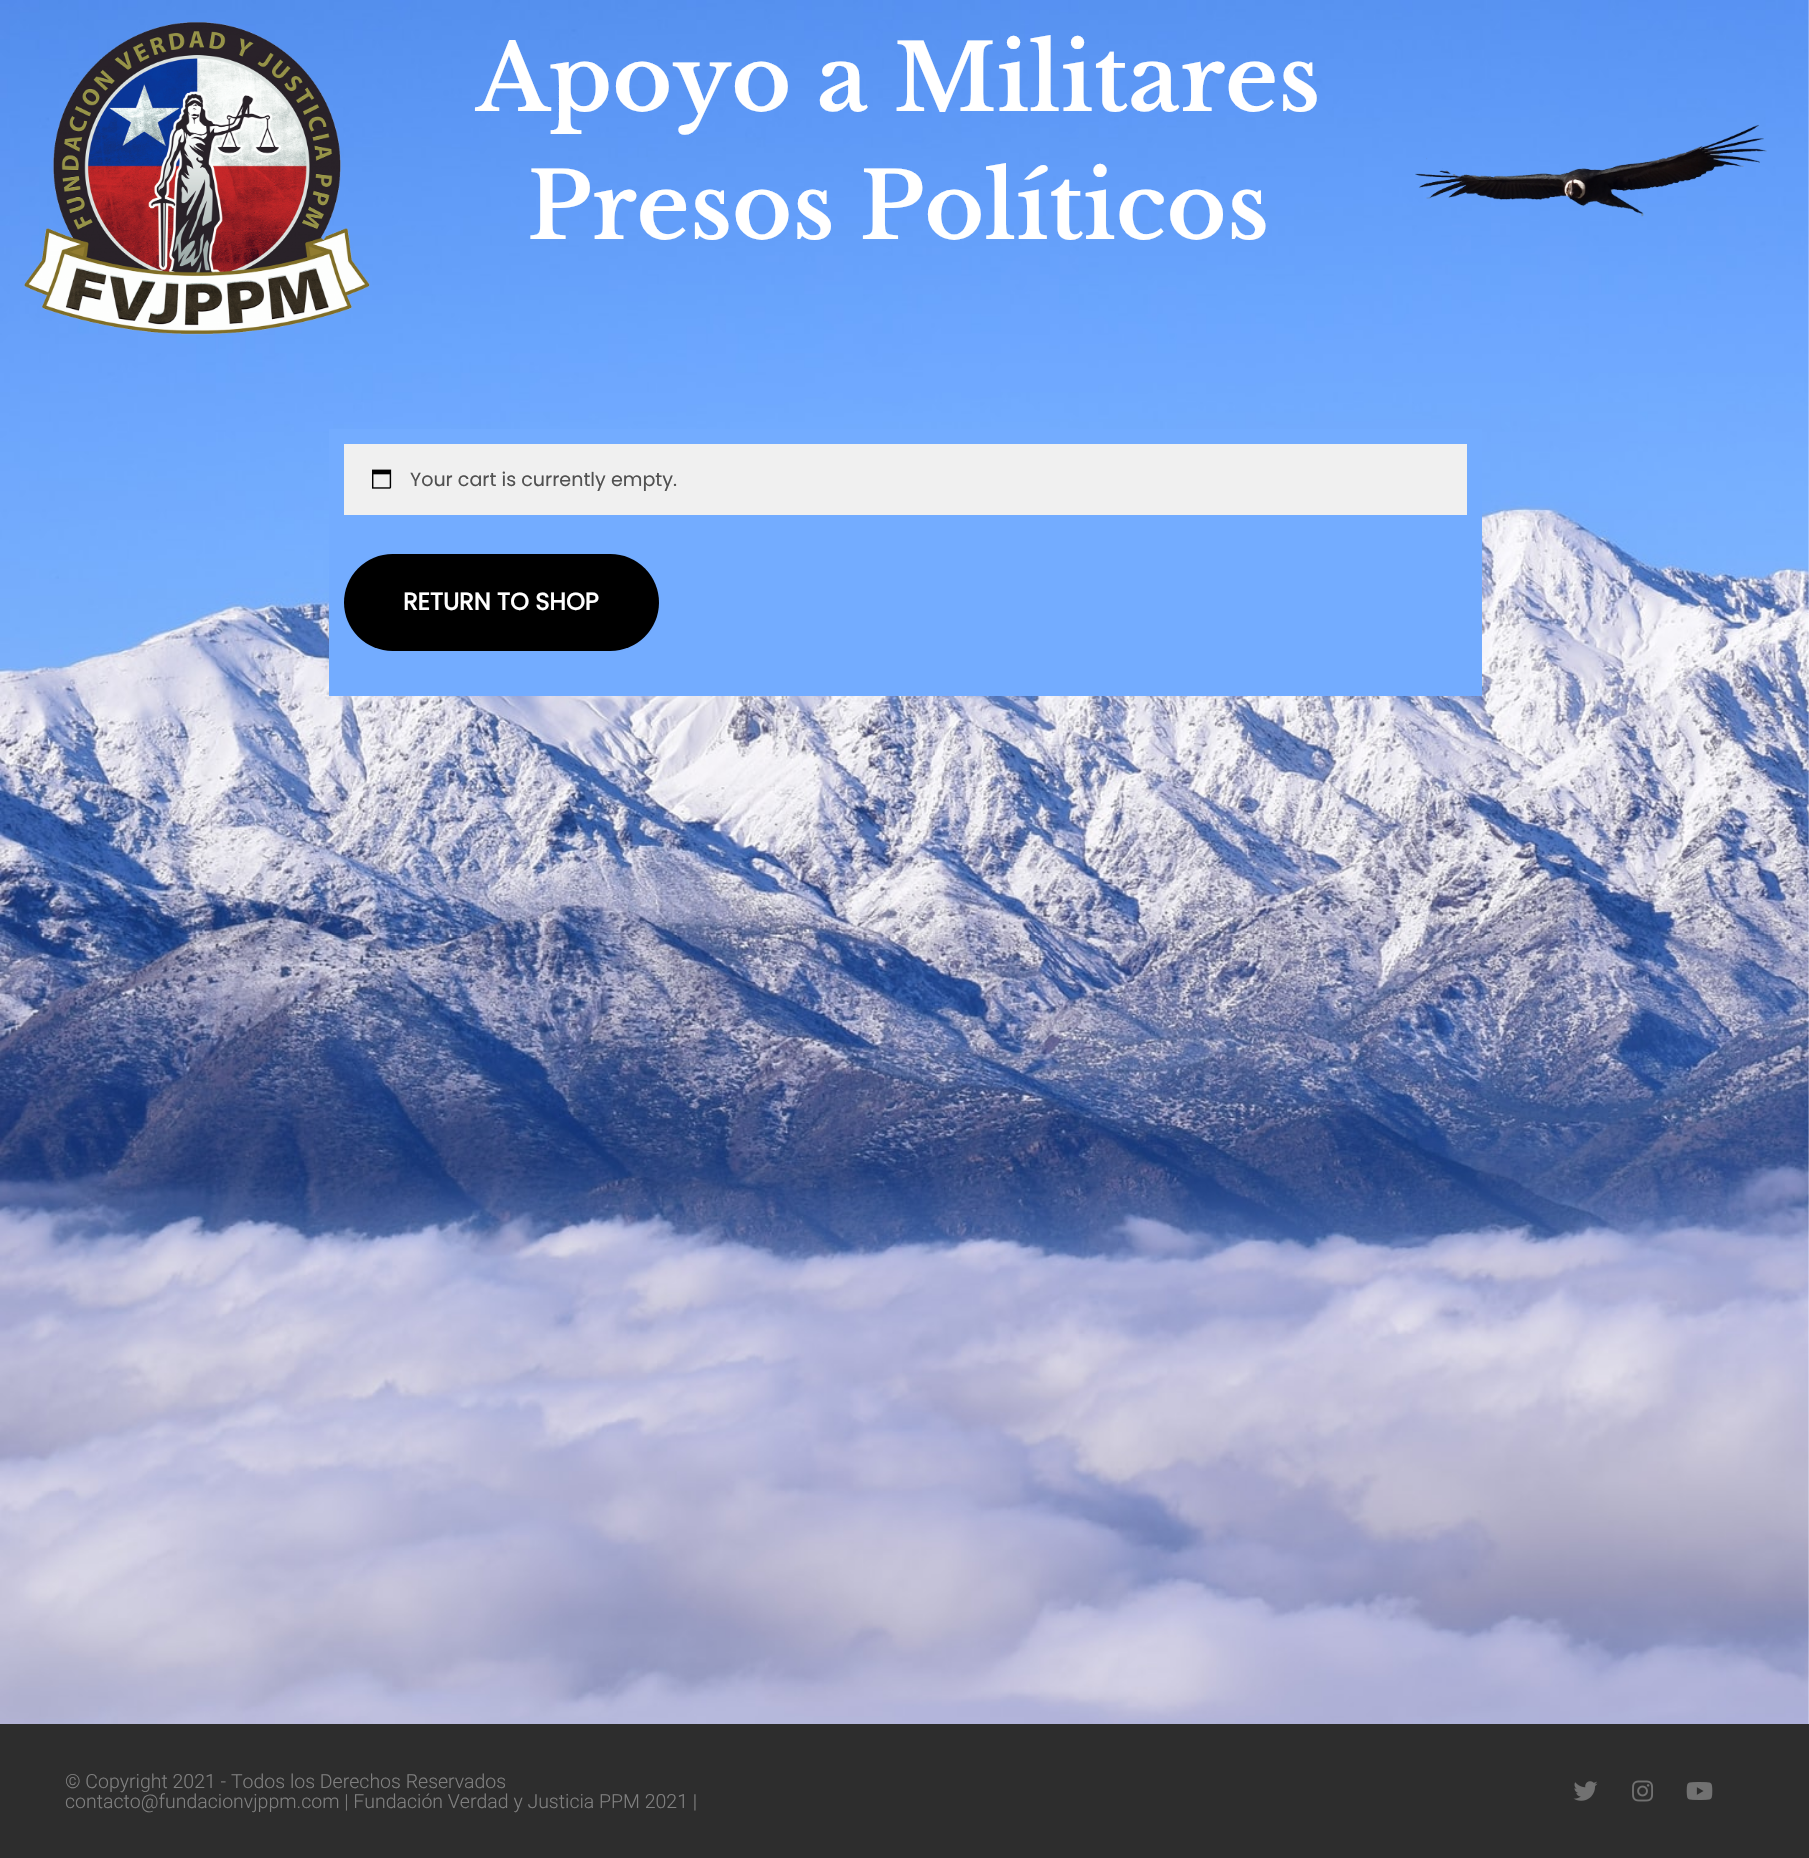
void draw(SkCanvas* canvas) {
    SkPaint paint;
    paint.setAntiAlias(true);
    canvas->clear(0xFFFFFFFF);
    canvas->drawImageRect(SkImages::DeferredFromEncodedData(SkData::MakeFromFileName("img1.png")), SkRect::MakeXYWH(0, 0, 1809, 1724), SkSamplingOptions());
    canvas->drawImageRect(SkImages::DeferredFromEncodedData(SkData::MakeFromFileName("img2.png")), SkRect::MakeXYWH(24, 22, 346, 313), SkSamplingOptions());
    SkFont font1(fontMgr->matchFamilyStyle("Libre Baskerville", SkFontStyle(600, SkFontStyle::kNormal_Width, SkFontStyle::kUpright_Slant)), 91.5f);
    font1.setSubpixel(true);
    paint.setColor(0xFFFFFFFF);
    canvas->drawString("Apoyo a Militares", 476, 111, font1, paint);
    canvas->drawString("Presos Políticos", 527, 239, font1, paint);
    canvas->drawImageRect(SkImages::DeferredFromEncodedData(SkData::MakeFromFileName("img3.png")), SkRect::MakeXYWH(1415, 124, 352, 93), SkSamplingOptions());
    paint.setColor(0xFF73ACFF);
    canvas->drawRect(SkRect::MakeXYWH(329, 429, 1153, 267), paint);
    paint.setColor(0xFFF0F0F0);
    canvas->drawRect(SkRect::MakeXYWH(344, 444, 1123, 71), paint);
    canvas->drawImageRect(SkImages::DeferredFromEncodedData(SkData::MakeFromFileName("img4.png")), SkRect::MakeXYWH(372, 469, 20, 20), SkSamplingOptions());
    SkFont font2(fontMgr->matchFamilyStyle("Poppins", SkFontStyle::Normal()), 19.1f);
    font2.setSubpixel(true);
    paint.setColor(0xFF515151);
    canvas->drawString("Your cart is currently empty.", 410, 486, font2, paint);
    paint.setColor(0xFF000000);
    canvas->drawRoundRect(SkRect::MakeXYWH(344, 554, 315, 97), 48.5f, 48.5f, paint);
    SkFont font3(fontMgr->matchFamilyStyle("Poppins", SkFontStyle::Bold()), 24);
    font3.setSubpixel(true);
    paint.setColor(0xFFFFFFFF);
    canvas->drawString("RETURN TO SHOP", 403, 610, font3, paint);
    paint.setColor(0xFF2D2D2D);
    canvas->drawRect(SkRect::MakeXYWH(0, 1724, 1809, 134), paint);
    SkFont font4(fontMgr->matchFamilyStyle("Roboto", SkFontStyle(300, SkFontStyle::kNormal_Width, SkFontStyle::kUpright_Slant)), 19.5f);
    font4.setSubpixel(true);
    paint.setColor(0xFF7F7F7F);
    canvas->drawString("© Copyright 2021 - Todos los Derechos Reservados", 65, 1788, font4, paint);
    canvas->drawString("contacto@fundacionvjppm.com | Fundación Verdad y Justicia PPM 2021 |", 65, 1808, font4, paint);
    canvas->drawImageRect(SkImages::DeferredFromEncodedData(SkData::MakeFromFileName("img5.png")), SkRect::MakeXYWH(1573, 1781, 25, 20), SkSamplingOptions());
    canvas->drawImageRect(SkImages::DeferredFromEncodedData(SkData::MakeFromFileName("img6.png")), SkRect::MakeXYWH(1632, 1780, 21, 22), SkSamplingOptions());
    canvas->drawImageRect(SkImages::DeferredFromEncodedData(SkData::MakeFromFileName("img7.png")), SkRect::MakeXYWH(1686, 1782, 27, 18), SkSamplingOptions());
}
